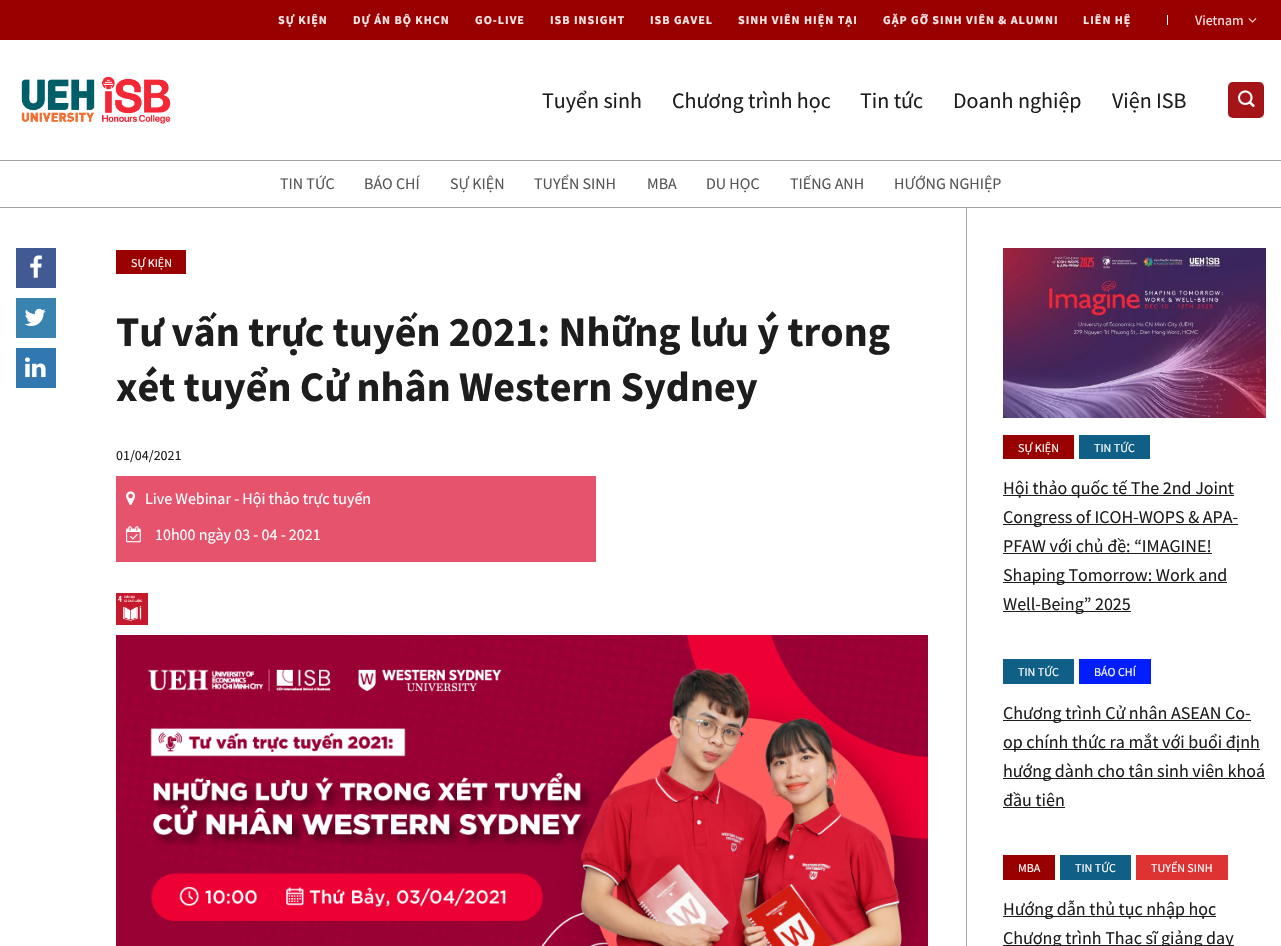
void draw(SkCanvas* canvas) {
    SkPaint paint;
    paint.setAntiAlias(true);
    auto spacedText = [&](const char* s, float x, float y, const SkFont& font, const SkPaint& ink, float letter, float word) {
        std::vector<SkGlyphID> glyphs(font.countText(s, strlen(s), SkTextEncoding::kUTF8));
        std::vector<float> xs(glyphs.size());
        font.textToGlyphs(s, strlen(s), SkTextEncoding::kUTF8, glyphs);
        font.getXPos(glyphs, xs, x);
        float extra = 0;
        for (size_t i = 0; i < glyphs.size(); i++) {
            xs[i] += extra;
            extra += letter + word * (glyphs[i] == font.unicharToGlyph(' '));
        }
        canvas->drawTextBlob(SkTextBlob::MakeFromPosHGlyphs(glyphs, xs, y, font), 0, 0, ink);
    };
    canvas->clear(0xFFFFFFFF);
    paint.setColor(0xFF990000);
    canvas->drawRect(SkRect::MakeXYWH(0, 0, 1281, 40), paint);
    SkFont font1(fontMgr->matchFamilyStyle("Source Sans Pro", SkFontStyle::Bold()), 12);
    font1.setSubpixel(true);
    paint.setColor(0xFFF5E6E6);
    spacedText("SỰ KIỆN", 278, 24, font1, paint, 1, 0);
    spacedText("DỰ ÁN BỘ KHCN", 353, 24, font1, paint, 1, 0);
    spacedText("GO-LIVE", 475, 24, font1, paint, 1, 0);
    spacedText("ISB INSIGHT", 550, 24, font1, paint, 1, 0);
    spacedText("ISB GAVEL", 650, 24, font1, paint, 1, 0);
    spacedText("SINH VIÊN HIỆN TẠI", 738, 24, font1, paint, 1, 0);
    spacedText("GẶP GỠ SINH VIÊN & ALUMNI", 883, 24, font1, paint, 1, 0);
    spacedText("LIÊN HỆ", 1083, 24, font1, paint, 1, 0);
    paint.setColor(0xFFFFFFFF);
    canvas->drawRect(SkRect::MakeXYWH(1167, 15, 1, 10), paint);
    SkFont font2(fontMgr->matchFamilyStyle("Source Sans Pro", SkFontStyle::Normal()), 14);
    font2.setSubpixel(true);
    paint.setColor(0xFFF5E6E6);
    canvas->drawString("Vietnam", 1195, 25, font2, paint);
    canvas->drawImageRect(SkImages::DeferredFromEncodedData(SkData::MakeFromFileName("img1.png")), SkRect::MakeXYWH(1248, 18, 9, 5), SkSamplingOptions());
    canvas->drawImageRect(SkImages::DeferredFromEncodedData(SkData::MakeFromFileName("img2.png")), SkRect::MakeXYWH(21, 77, 150, 47), SkSamplingOptions());
    SkFont font3(fontMgr->matchFamilyStyle("Source Sans Pro", SkFontStyle::Normal()), 22);
    font3.setSubpixel(true);
    paint.setColor(0xFF1D1D1D);
    canvas->drawString("Tuyển sinh", 542, 108, font3, paint);
    canvas->drawString("Chương trình học", 672, 108, font3, paint);
    canvas->drawString("Tin tức", 860, 108, font3, paint);
    canvas->drawString("Doanh nghiệp", 953, 108, font3, paint);
    canvas->drawString("Viện ISB", 1112, 108, font3, paint);
    paint.setColor(0xFFA51417);
    canvas->drawRoundRect(SkRect::MakeXYWH(1228, 82, 36, 36), 5, 5, paint);
    paint.setStyle(SkPaint::kStroke_Style);
    paint.setStrokeWidth(1);
    paint.setColor(0x0D000000);
    canvas->drawRect(SkRect::MakeXYWH(1228.5f, 82.5f, 35, 35), paint);
    canvas->drawImageRect(SkImages::DeferredFromEncodedData(SkData::MakeFromFileName("img3.png")), SkRect::MakeXYWH(1238, 90, 17, 17), SkSamplingOptions());
    paint.setStyle(SkPaint::kFill_Style);
    paint.setColor(0xFFA5A4A4);
    canvas->drawRect(SkRect::MakeXYWH(0, 160, 1281, 1), paint);
    canvas->drawRect(SkRect::MakeXYWH(0, 207, 1281, 1), paint);
    SkFont font4(fontMgr->matchFamilyStyle("Source Sans Pro", SkFontStyle::Normal()), 16);
    font4.setSubpixel(true);
    paint.setColor(0xFF555555);
    canvas->drawString("TIN TỨC", 280, 189, font4, paint);
    canvas->drawString("BÁO CHÍ", 364, 189, font4, paint);
    canvas->drawString("SỰ KIỆN", 450, 189, font4, paint);
    canvas->drawString("TUYỂN SINH", 534, 189, font4, paint);
    canvas->drawString("MBA", 647, 189, font4, paint);
    canvas->drawString("DU HỌC", 706, 189, font4, paint);
    canvas->drawString("TIẾNG ANH", 790, 189, font4, paint);
    canvas->drawString("HƯỚNG NGHIỆP", 894, 189, font4, paint);
    paint.setColor(0xFF415A94);
    canvas->drawRect(SkRect::MakeXYWH(16, 248, 40, 40), paint);
    canvas->drawImageRect(SkImages::DeferredFromEncodedData(SkData::MakeFromFileName("img4.png")), SkRect::MakeXYWH(30, 255, 12, 23), SkSamplingOptions());
    paint.setColor(0xFF3883B0);
    canvas->drawRect(SkRect::MakeXYWH(16, 298, 40, 40), paint);
    canvas->drawImageRect(SkImages::DeferredFromEncodedData(SkData::MakeFromFileName("img5.png")), SkRect::MakeXYWH(24, 308, 22, 18), SkSamplingOptions());
    paint.setColor(0xFF3177B0);
    canvas->drawRect(SkRect::MakeXYWH(16, 348, 40, 40), paint);
    canvas->drawImageRect(SkImages::DeferredFromEncodedData(SkData::MakeFromFileName("img6.png")), SkRect::MakeXYWH(25, 357, 21, 21), SkSamplingOptions());
    paint.setColor(0xFF990000);
    canvas->drawRect(SkRect::MakeXYWH(116, 250, 70, 24), paint);
    SkFont font5(fontMgr->matchFamilyStyle("Source Sans Pro", SkFontStyle::Normal()), 12);
    font5.setSubpixel(true);
    paint.setColor(0xFFFFFFFF);
    canvas->drawString("SỰ KIỆN", 131, 267, font5, paint);
    SkFont font6(fontMgr->matchFamilyStyle("Source Sans Pro", SkFontStyle::Bold()), 42);
    font6.setSubpixel(true);
    paint.setColor(0xFF1D1D1D);
    canvas->drawString("Tư vấn trực tuyến 2021: Những lưu ý trong", 116, 346, font6, paint);
    canvas->drawString("xét tuyển Cử nhân Western Sydney", 116, 401, font6, paint);
    canvas->drawString("01/04/2021", 116, 460, font2, paint);
    paint.setColor(0xFFE6536C);
    canvas->drawRect(SkRect::MakeXYWH(116, 476, 480, 86), paint);
    canvas->drawImageRect(SkImages::DeferredFromEncodedData(SkData::MakeFromFileName("img7.png")), SkRect::MakeXYWH(126, 491, 10, 15), SkSamplingOptions());
    paint.setColor(0xFFFFFFFF);
    canvas->drawString("Live Webinar - Hội thảo trực tuyến", 145, 504, font4, paint);
    canvas->drawImageRect(SkImages::DeferredFromEncodedData(SkData::MakeFromFileName("img8.png")), SkRect::MakeXYWH(126, 526, 15, 17), SkSamplingOptions());
    canvas->drawString("10h00 ngày 03 - 04 - 2021", 155, 540, font4, paint);
    canvas->drawImageRect(SkImages::DeferredFromEncodedData(SkData::MakeFromFileName("img9.png")), SkRect::MakeXYWH(116, 593, 32, 32), SkSamplingOptions());
    canvas->drawImageRect(SkImages::DeferredFromEncodedData(SkData::MakeFromFileName("img10.png")), SkRect::MakeXYWH(116, 635, 812, 311), SkSamplingOptions());
    paint.setColor(0xFFA5A4A4);
    canvas->drawRect(SkRect::MakeXYWH(966, 208, 1, 738), paint);
    canvas->drawImageRect(SkImages::DeferredFromEncodedData(SkData::MakeFromFileName("img11.png")), SkRect::MakeXYWH(1003, 248, 263, 170), SkSamplingOptions());
    paint.setColor(0xFF990000);
    canvas->drawRect(SkRect::MakeXYWH(1003, 435, 71, 24), paint);
    paint.setColor(0xFFFFFFFF);
    canvas->drawString("SỰ KIỆN", 1018, 452, font5, paint);
    paint.setColor(0xFF105F86);
    canvas->drawRect(SkRect::MakeXYWH(1079, 435, 71, 24), paint);
    paint.setColor(0xFFFFFFFF);
    canvas->drawString("TIN TỨC", 1094, 452, font5, paint);
    paint.setColor(0xFF1D1D1D);
    canvas->drawRect(SkRect::MakeXYWH(1003, 495, 231, 1), paint);
    SkFont font7(fontMgr->matchFamilyStyle("Source Sans Pro", SkFontStyle::Normal()), 18);
    font7.setSubpixel(true);
    canvas->drawString("Hội thảo quốc tế The 2nd Joint", 1003, 494, font7, paint);
    canvas->drawRect(SkRect::MakeXYWH(1003, 524, 235, 1), paint);
    canvas->drawString("Congress of ICOH-WOPS & APA-", 1003, 523, font7, paint);
    canvas->drawString("PFAW với chủ đề: “IMAGINE!", 1003, 552, font7, paint);
    canvas->drawRect(SkRect::MakeXYWH(1003, 553, 209, 1), paint);
    canvas->drawRect(SkRect::MakeXYWH(1003, 582, 224, 1), paint);
    canvas->drawString("Shaping Tomorrow: Work and", 1003, 581, font7, paint);
    canvas->drawRect(SkRect::MakeXYWH(1003, 611, 128, 1), paint);
    canvas->drawString("Well-Being” 2025", 1003, 610, font7, paint);
    paint.setColor(0xFF105F86);
    canvas->drawRect(SkRect::MakeXYWH(1003, 659, 71, 25), paint);
    paint.setColor(0xFFFFFFFF);
    canvas->drawString("TIN TỨC", 1018, 676, font5, paint);
    paint.setColor(0xFF001EFF);
    canvas->drawRect(SkRect::MakeXYWH(1079, 659, 72, 25), paint);
    paint.setColor(0xFFFFFFFF);
    canvas->drawString("BÁO CHÍ", 1094, 676, font5, paint);
    paint.setColor(0xFF1D1D1D);
    canvas->drawRect(SkRect::MakeXYWH(1003, 720, 248, 1), paint);
    canvas->drawString("Chương trình Cử nhân ASEAN Co-", 1003, 719, font7, paint);
    canvas->drawRect(SkRect::MakeXYWH(1003, 749, 257, 1), paint);
    canvas->drawString("op chính thức ra mắt với buổi định", 1003, 748, font7, paint);
    canvas->drawRect(SkRect::MakeXYWH(1003, 778, 262, 1), paint);
    canvas->drawString("hướng dành cho tân sinh viên khoá", 1003, 777, font7, paint);
    canvas->drawString("đầu tiên", 1003, 806, font7, paint);
    canvas->drawRect(SkRect::MakeXYWH(1003, 807, 62, 1), paint);
    paint.setColor(0xFF990000);
    canvas->drawRect(SkRect::MakeXYWH(1003, 855, 52, 25), paint);
    paint.setColor(0xFFFFFFFF);
    canvas->drawString("MBA", 1018, 872, font5, paint);
    paint.setColor(0xFF105F86);
    canvas->drawRect(SkRect::MakeXYWH(1060, 855, 71, 25), paint);
    paint.setColor(0xFFFFFFFF);
    canvas->drawString("TIN TỨC", 1075, 872, font5, paint);
    paint.setColor(0xFFDD3333);
    canvas->drawRect(SkRect::MakeXYWH(1136, 855, 92, 25), paint);
    paint.setColor(0xFFFFFFFF);
    canvas->drawString("TUYỂN SINH", 1151, 872, font5, paint);
    paint.setColor(0xFF1D1D1D);
    canvas->drawRect(SkRect::MakeXYWH(1003, 916, 213, 1), paint);
    canvas->drawString("Hướng dẫn thủ tục nhập học", 1003, 915, font7, paint);
    canvas->drawRect(SkRect::MakeXYWH(1003, 945, 231, 1), paint);
    canvas->drawString("Chương trình Thạc sĩ giảng dạy", 1003, 944, font7, paint);
}
